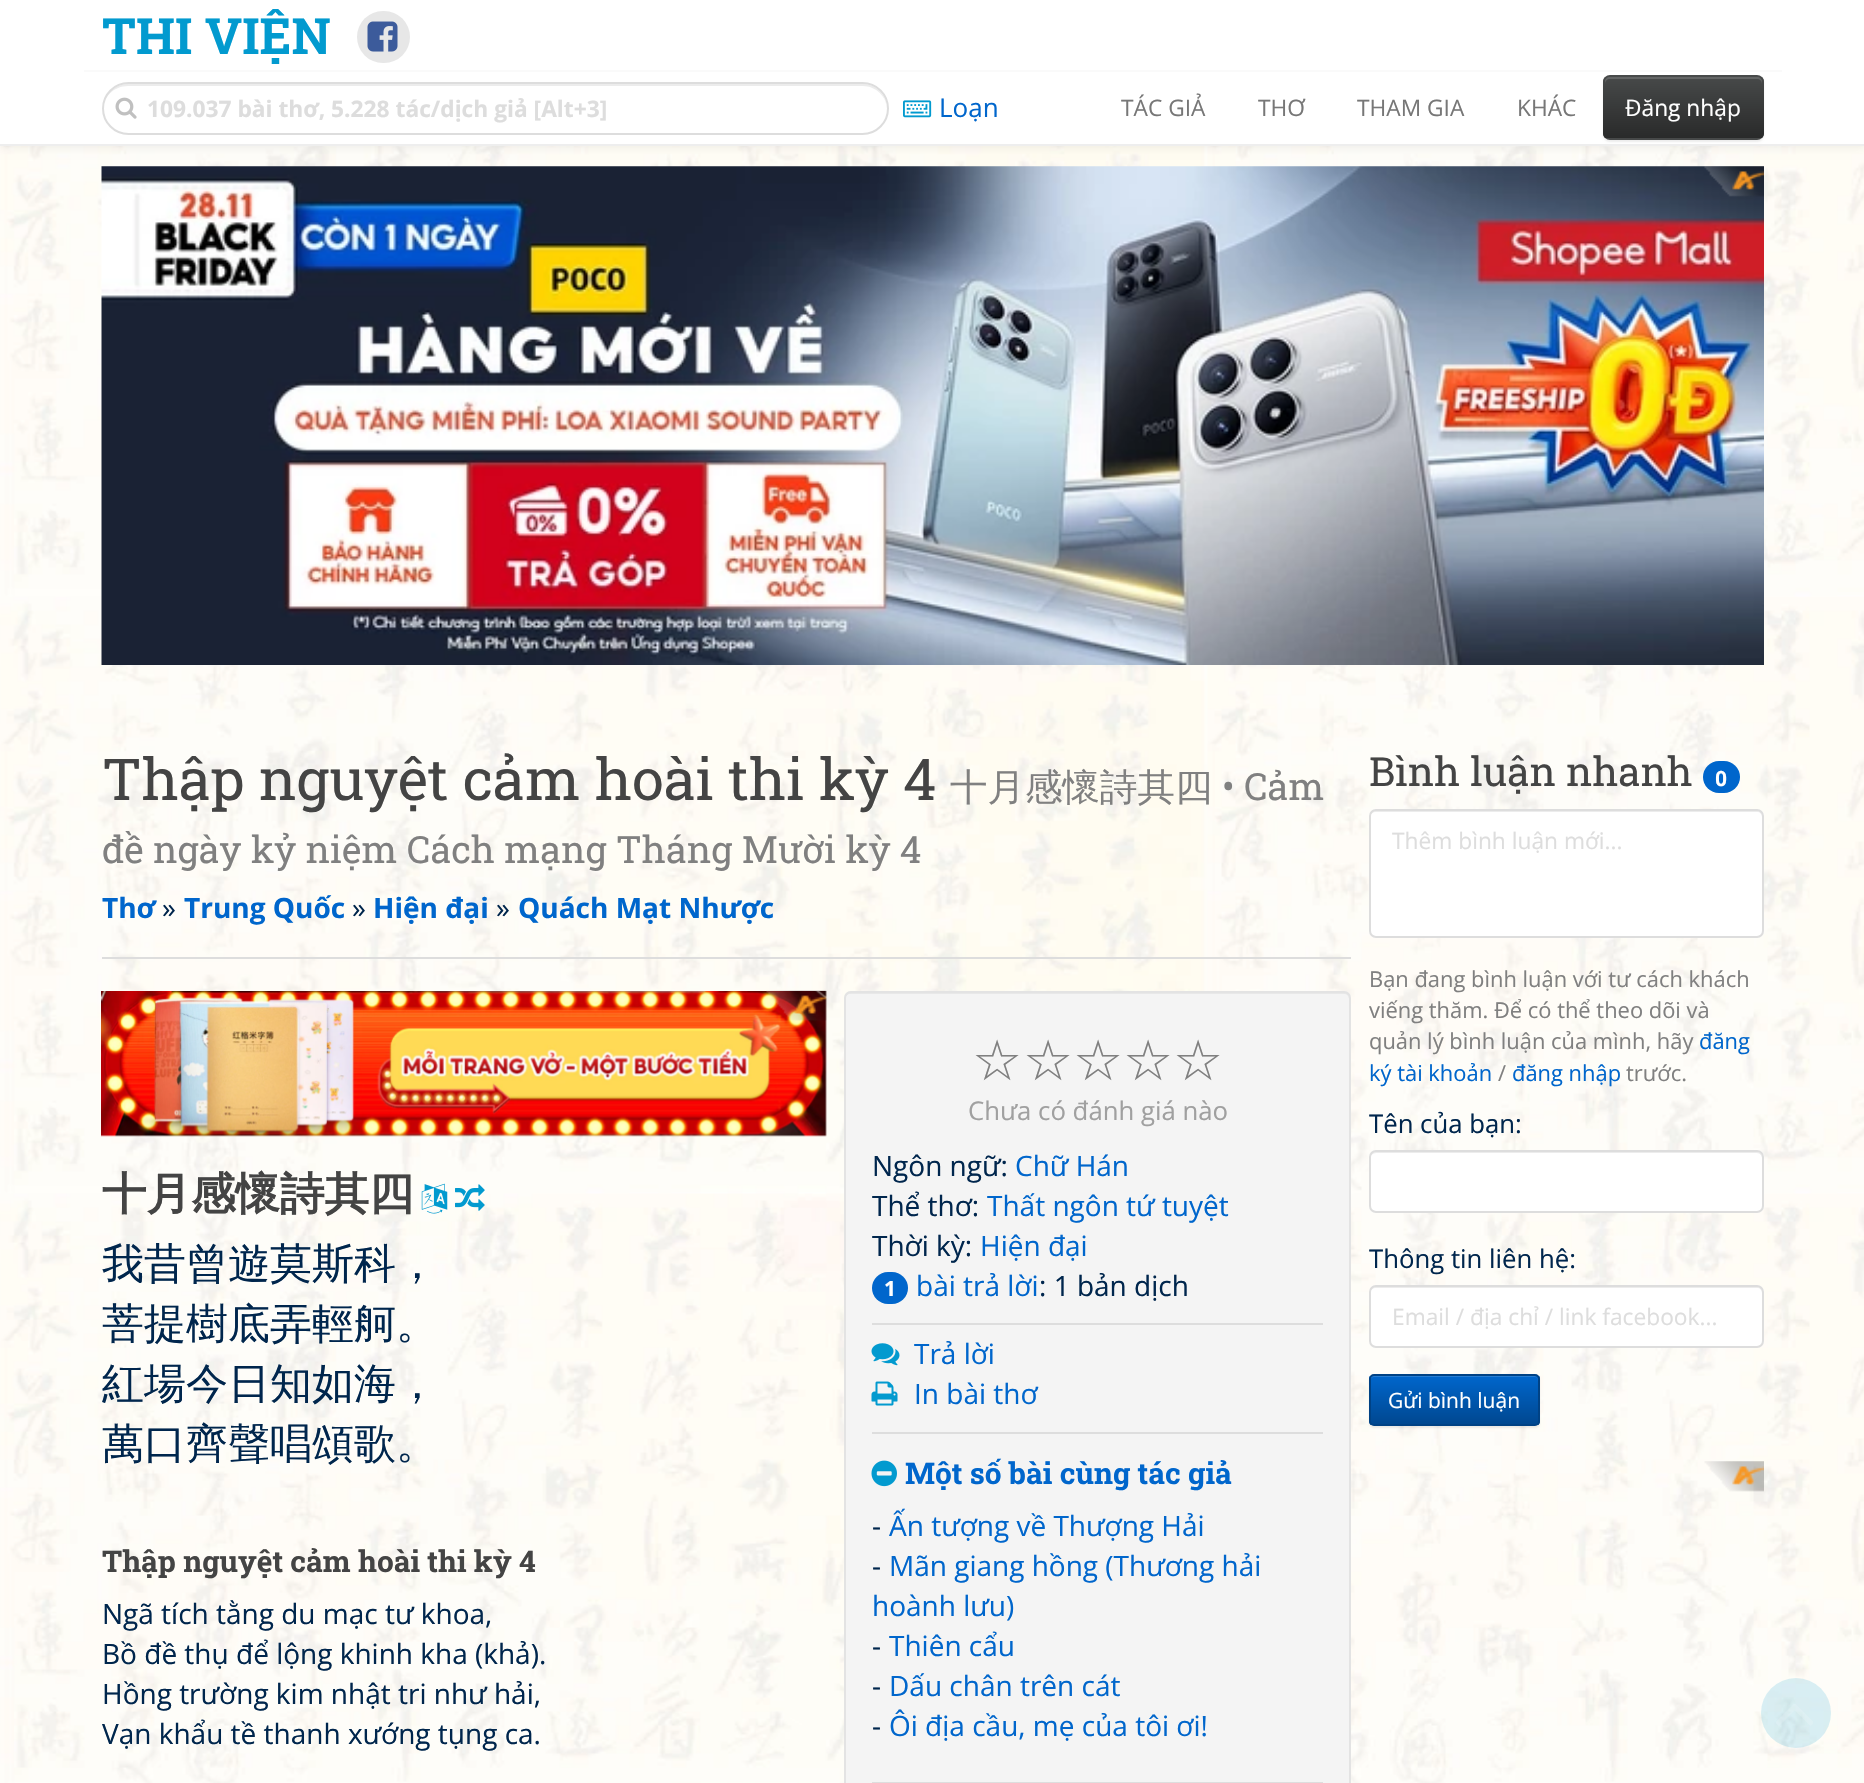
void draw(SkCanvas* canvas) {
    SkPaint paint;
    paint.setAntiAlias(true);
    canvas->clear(0xFFFFFFFF);
    canvas->drawImageRect(SkImages::DeferredFromEncodedData(SkData::MakeFromFileName("img1.png")), SkRect::MakeXYWH(0, 146, 1864, 1637), SkSamplingOptions());
    paint.setColor(0x12000000);
    paint.setMaskFilter(SkMaskFilter::MakeBlur(kNormal_SkBlurStyle, 4.5f));
    canvas->drawRect(SkRect::MakeXYWH(0, 2, 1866, 145), paint);
    paint.setMaskFilter(nullptr);
    paint.setColor(0xFFFFFFFF);
    canvas->drawRect(SkRect::MakeXYWH(0, 0, 1864, 144), paint);
    paint.setColor(0xFFEEEEEE);
    canvas->drawRect(SkRect::MakeXYWH(0, 144, 1864, 2), paint);
    paint.setColor(0xFFFAFAFA);
    canvas->drawRect(SkRect::MakeXYWH(84, 70, 1698, 2), paint);
    SkFont font1(fontMgr->matchFamilyStyle("Roboto Slab", SkFontStyle::Bold()), 50);
    font1.setSubpixel(true);
    paint.setColor(0xFF029ACF);
    canvas->drawString("THI VIỆN", 102, 54, font1, paint);
    paint.setColor(0xFFE7E7E7);
    canvas->drawRoundRect(SkRect::MakeXYWH(357, 11, 53, 52), 26, 26, paint);
    canvas->drawImageRect(SkImages::DeferredFromEncodedData(SkData::MakeFromFileName("img2.png")), SkRect::MakeXYWH(367, 21, 31, 31), SkSamplingOptions());
    paint.setColor(0xFFECECEC);
    canvas->drawPath(SkPathBuilder().moveTo(128, 86).lineTo(863, 86).cubicTo(876, 86, 887, 97, 887, 109).cubicTo(887, 101, 883, 93, 876, 88).cubicTo(872, 85, 867, 84, 862, 84).lineTo(128, 84).cubicTo(114, 84, 103, 96, 103, 109).cubicTo(103, 97, 114, 86, 128, 86).close().detach(), paint);
    paint.setStyle(SkPaint::kStroke_Style);
    paint.setStrokeWidth(2);
    paint.setColor(0xFFDDDDDD);
    canvas->drawRoundRect(SkRect::MakeXYWH(103, 83, 785, 51), 25.5f, 25.5f, paint);
    canvas->drawImageRect(SkImages::DeferredFromEncodedData(SkData::MakeFromFileName("img3.png")), SkRect::MakeXYWH(115, 97, 22, 22), SkSamplingOptions());
    SkFont font2(fontMgr->matchFamilyStyle("Open Sans", SkFontStyle::Bold()), 22.75f);
    font2.setSubpixel(true);
    paint.setStyle(SkPaint::kFill_Style);
    canvas->drawString("109.037 bài thơ, 5.228 tác/dịch giả [Alt+3]", 147, 117, font2, paint);
    canvas->drawImageRect(SkImages::DeferredFromEncodedData(SkData::MakeFromFileName("img4.png")), SkRect::MakeXYWH(903, 100, 29, 18), SkSamplingOptions());
    SkFont font3(fontMgr->matchFamilyStyle("Open Sans", SkFontStyle::Normal()), 26);
    font3.setSubpixel(true);
    paint.setColor(0xFF0066CC);
    canvas->drawString("Loạn", 939, 117, font3, paint);
    SkFont font4(fontMgr->matchFamilyStyle("Open Sans", SkFontStyle::Normal()), 22.75f);
    font4.setSubpixel(true);
    paint.setColor(0xFF777777);
    canvas->drawString("TÁC GIẢ", 1121, 116, font4, paint);
    canvas->drawString("THƠ", 1258, 116, font4, paint);
    canvas->drawString("THAM GIA", 1357, 116, font4, paint);
    canvas->drawString("KHÁC", 1517, 116, font4, paint);
    paint.setColor(0x12000000);
    paint.setMaskFilter(SkMaskFilter::MakeBlur(kNormal_SkBlurStyle, 1));
    canvas->drawRoundRect(SkRect::MakeXYWH(1603, 77, 161, 65), 7, 7, paint);
    paint.setMaskFilter(nullptr);
    paint.setColor(0xFF474949);
    canvas->drawRoundRect(SkRect::MakeXYWH(1603, 75, 161, 65), 7, 7, paint);
    canvas->save();
    canvas->clipPath(SkPathBuilder().moveTo(1610, 75).lineTo(1757, 75).cubicTo(1761, 75, 1764, 78, 1764, 82).lineTo(1764, 133).cubicTo(1764, 137, 1761, 140, 1757, 140).lineTo(1610, 140).cubicTo(1606, 140, 1603, 137, 1603, 133).lineTo(1603, 82).cubicTo(1603, 78, 1606, 75, 1610, 75).close().detach(), true);
    {
        const SkColor colors[] = {0xFF474949, 0xFF292A2A};
        const float stops[] = {0, 1};
        const SkPoint ends[] = {{1684, 77}, {1684, 138}};
        paint.setShader(SkGradientShader::MakeLinear(ends, colors, stops, 2, SkTileMode::kClamp));
        paint.setAlpha(255);
    }
    canvas->drawRect(SkRect::MakeXYWH(1603, 77, 161, 61), paint);
    canvas->restore();
    paint.setShader(nullptr);
    paint.setColor(0xFF626464);
    canvas->drawPath(SkPathBuilder().moveTo(1610, 79).lineTo(1757, 79).cubicTo(1760, 79, 1762, 81, 1762, 84).lineTo(1762, 82).cubicTo(1762, 79, 1760, 77, 1757, 77).lineTo(1610, 77).cubicTo(1607, 77, 1605, 79, 1605, 82).lineTo(1605, 84).cubicTo(1605, 81, 1607, 79, 1610, 79).close().detach(), paint);
    paint.setColor(0xFFFFFFFF);
    canvas->drawString("Đăng nhập", 1625, 116, font4, paint);
    paint.setColor(0x26029ACF);
    canvas->drawCircle(1796, 1713, 35, paint);
    canvas->drawImageRect(SkImages::DeferredFromEncodedData(SkData::MakeFromFileName("img5.png")), SkRect::MakeXYWH(1776, 1704, 37, 22), SkSamplingOptions());
    canvas->drawImageRect(SkImages::DeferredFromEncodedData(SkData::MakeFromFileName("img6.png")), SkRect::MakeXYWH(101, 166, 1663, 499), SkSamplingOptions());
    canvas->drawImageRect(SkImages::DeferredFromEncodedData(SkData::MakeFromFileName("img7.png")), SkRect::MakeXYWH(1704, 166, 60, 31), SkSamplingOptions());
    paint.setColor(0xFFDDDDDD);
    canvas->drawRect(SkRect::MakeXYWH(102, 957, 1249, 2), paint);
    SkFont font5(fontMgr->matchFamilyStyle("Roboto Slab", SkFontStyle::Normal()), 57.75f);
    font5.setSubpixel(true);
    paint.setColor(0xFF444444);
    canvas->drawString("Thập nguyệt cảm hoài thi kỳ 4", 102, 800, font5, paint);
    SkFont font6(fontMgr->matchFamilyStyle("WenQuanYi Zen Hei", SkFontStyle(500, SkFontStyle::kNormal_Width, SkFontStyle::kUpright_Slant)), 37.5f);
    font6.setSubpixel(true);
    paint.setColor(0xFF808080);
    canvas->drawString("十月感懷詩其四", 950, 800, font6, paint);
    SkFont font7(fontMgr->matchFamilyStyle("Roboto Slab", SkFontStyle::Normal()), 37.5f);
    font7.setSubpixel(true);
    canvas->drawString("• Cảm", 1222, 800, font7, paint);
    canvas->drawString("đề ngày kỷ niệm Cách mạng Tháng Mười kỳ 4", 102, 863, font7, paint);
    SkFont font8(fontMgr->matchFamilyStyle("Open Sans", SkFontStyle::Bold()), 28);
    font8.setSubpixel(true);
    paint.setColor(0xFF0066CC);
    canvas->drawString("Thơ", 102, 918, font8, paint);
    SkFont font9(fontMgr->matchFamilyStyle("Open Sans", SkFontStyle::Normal()), 28);
    font9.setSubpixel(true);
    paint.setColor(0xFF00264D);
    canvas->drawString("»", 162, 918, font9, paint);
    paint.setColor(0xFF0066CC);
    canvas->drawString("Trung Quốc", 184, 918, font8, paint);
    paint.setColor(0xFF00264D);
    canvas->drawString("»", 352, 918, font9, paint);
    paint.setColor(0xFF0066CC);
    canvas->drawString("Hiện đại", 373, 918, font8, paint);
    paint.setColor(0xFF00264D);
    canvas->drawString("»", 496, 918, font9, paint);
    paint.setColor(0xFF0066CC);
    canvas->drawString("Quách Mạt Nhược", 518, 918, font8, paint);
    canvas->drawImageRect(SkImages::DeferredFromEncodedData(SkData::MakeFromFileName("img9.png")), SkRect::MakeXYWH(101, 991, 726, 146), SkSamplingOptions());
    canvas->drawImageRect(SkImages::DeferredFromEncodedData(SkData::MakeFromFileName("img8.png")), SkRect::MakeXYWH(766, 990, 61, 31), SkSamplingOptions());
    paint.setColor(0xFFF4F4F4);
    canvas->drawRoundRect(SkRect::MakeXYWH(844, 991, 507, 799), 7, 7, paint);
    paint.setColor(0xFFE8E8E8);
    canvas->drawPath(SkPathBuilder().moveTo(850, 994).lineTo(1344, 994).cubicTo(1347, 994, 1349, 996, 1349, 999).lineTo(1349, 997).cubicTo(1349, 994, 1347, 992, 1344, 992).lineTo(850, 992).cubicTo(847, 992, 845, 994, 845, 997).lineTo(845, 999).cubicTo(845, 996, 848, 994, 850, 994).close().detach(), paint);
    paint.setStyle(SkPaint::kStroke_Style);
    paint.setColor(0xFFE3E3E3);
    canvas->drawRoundRect(SkRect::MakeXYWH(845, 992, 505, 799), 6, 6, paint);
    SkFont font10(fontMgr->matchFamilyStyle("DejaVu Sans", SkFontStyle::Normal()), 56);
    font10.setSubpixel(true);
    paint.setStyle(SkPaint::kFill_Style);
    paint.setColor(0xFF808080);
    canvas->drawString("☆", 972, 1080, font10, paint);
    canvas->drawString("☆", 1023, 1080, font10, paint);
    canvas->drawString("☆", 1073, 1080, font10, paint);
    canvas->drawString("☆", 1123, 1080, font10, paint);
    canvas->drawString("☆", 1173, 1080, font10, paint);
    SkFont font11(fontMgr->matchFamilyStyle("Open Sans", SkFontStyle::Normal()), 25.75f);
    font11.setSubpixel(true);
    paint.setColor(0xFFA0A0A0);
    canvas->drawString("Chưa có đánh giá nào", 968, 1120, font11, paint);
    paint.setColor(0xFF00264D);
    canvas->drawString("Ngôn ngữ:", 872, 1176, font9, paint);
    paint.setColor(0xFF0066CC);
    canvas->drawString("Chữ Hán", 1015, 1176, font9, paint);
    paint.setColor(0xFF00264D);
    canvas->drawString("Thể thơ:", 872, 1216, font9, paint);
    paint.setColor(0xFF0066CC);
    canvas->drawString("Thất ngôn tứ tuyệt", 987, 1216, font9, paint);
    paint.setColor(0xFF00264D);
    canvas->drawString("Thời kỳ:", 872, 1256, font9, paint);
    paint.setColor(0xFF0066CC);
    canvas->drawString("Hiện đại", 980, 1256, font9, paint);
    canvas->drawRoundRect(SkRect::MakeXYWH(872, 1272, 36, 32), 16, 16, paint);
    SkFont font12(fontMgr->matchFamilyStyle("Open Sans", SkFontStyle::Bold()), 21);
    font12.setSubpixel(true);
    paint.setColor(0xFFFFFFFF);
    canvas->drawString("1", 884, 1296, font12, paint);
    paint.setColor(0xFF0066CC);
    canvas->drawString("bài trả lời", 916, 1296, font9, paint);
    paint.setColor(0xFF00264D);
    canvas->drawString(": 1 bản dịch", 1039, 1296, font9, paint);
    paint.setColor(0xFFDDDDDD);
    canvas->drawRect(SkRect::MakeXYWH(872, 1323, 451, 2), paint);
    canvas->drawImageRect(SkImages::DeferredFromEncodedData(SkData::MakeFromFileName("img10.png")), SkRect::MakeXYWH(871, 1343, 29, 23), SkSamplingOptions());
    paint.setColor(0xFF0066CC);
    canvas->drawString("Trả lời", 914, 1364, font9, paint);
    canvas->drawImageRect(SkImages::DeferredFromEncodedData(SkData::MakeFromFileName("img11.png")), SkRect::MakeXYWH(871, 1381, 27, 25), SkSamplingOptions());
    canvas->drawString("In bài thơ", 914, 1404, font9, paint);
    paint.setColor(0xFFDDDDDD);
    canvas->drawRect(SkRect::MakeXYWH(872, 1432, 451, 2), paint);
    canvas->drawImageRect(SkImages::DeferredFromEncodedData(SkData::MakeFromFileName("img12.png")), SkRect::MakeXYWH(871, 1460, 26, 27), SkSamplingOptions());
    SkFont font13(fontMgr->matchFamilyStyle("Roboto Slab", SkFontStyle::Bold()), 29.75f);
    font13.setSubpixel(true);
    paint.setColor(0xFF0066CC);
    canvas->drawString("Một số bài cùng tác giả", 905, 1484, font13, paint);
    paint.setColor(0xFF00264D);
    canvas->drawString("-", 872, 1536, font9, paint);
    paint.setColor(0xFF0066CC);
    canvas->drawString("Ấn tượng về Thượng Hải", 889, 1536, font9, paint);
    paint.setColor(0xFF00264D);
    canvas->drawString("-", 872, 1576, font9, paint);
    paint.setColor(0xFF0066CC);
    canvas->drawString("Mãn giang hồng (Thương hải", 889, 1576, font9, paint);
    canvas->drawString("hoành lưu)", 872, 1616, font9, paint);
    paint.setColor(0xFF00264D);
    canvas->drawString("-", 872, 1656, font9, paint);
    paint.setColor(0xFF0066CC);
    canvas->drawString("Thiên cẩu", 889, 1656, font9, paint);
    paint.setColor(0xFF00264D);
    canvas->drawString("-", 872, 1696, font9, paint);
    paint.setColor(0xFF0066CC);
    canvas->drawString("Dấu chân trên cát", 889, 1696, font9, paint);
    paint.setColor(0xFF00264D);
    canvas->drawString("-", 872, 1736, font9, paint);
    paint.setColor(0xFF0066CC);
    canvas->drawString("Ôi địa cầu, mẹ của tôi ơi!", 889, 1736, font9, paint);
    paint.setColor(0xFFDDDDDD);
    canvas->drawRect(SkRect::MakeXYWH(872, 1782, 451, 1), paint);
    SkFont font14(fontMgr->matchFamilyStyle("WenQuanYi Zen Hei", SkFontStyle::Bold()), 44.5f);
    font14.setSubpixel(true);
    paint.setColor(0xFF444444);
    canvas->drawString("十月感懷詩其四", 102, 1209, font14, paint);
    canvas->drawImageRect(SkImages::DeferredFromEncodedData(SkData::MakeFromFileName("img13.png")), SkRect::MakeXYWH(421, 1183, 27, 31), SkSamplingOptions());
    canvas->drawImageRect(SkImages::DeferredFromEncodedData(SkData::MakeFromFileName("img14.png")), SkRect::MakeXYWH(455, 1184, 30, 27), SkSamplingOptions());
    SkFont font15(fontMgr->matchFamilyStyle("WenQuanYi Zen Hei", SkFontStyle(500, SkFontStyle::kNormal_Width, SkFontStyle::kUpright_Slant)), 42);
    font15.setSubpixel(true);
    paint.setColor(0xFF00264D);
    canvas->drawString("我昔曾遊莫斯科，", 102, 1278, font15, paint);
    canvas->drawString("菩提樹底弄輕舸。", 102, 1338, font15, paint);
    canvas->drawString("紅場今日知如海，", 102, 1398, font15, paint);
    canvas->drawString("萬口齊聲唱頌歌。", 102, 1458, font15, paint);
    paint.setColor(0xFF444444);
    canvas->drawString("Thập nguyệt cảm hoài thi kỳ 4", 102, 1572, font13, paint);
    paint.setColor(0xFF00264D);
    canvas->drawString("Ngã tích tằng du mạc tư khoa,", 102, 1624, font9, paint);
    canvas->drawString("Bồ đề thụ để lộng khinh kha (khả).", 102, 1664, font9, paint);
    canvas->drawString("Hồng trường kim nhật tri như hải,", 102, 1704, font9, paint);
    canvas->drawString("Vạn khẩu tề thanh xướng tụng ca.", 102, 1744, font9, paint);
    SkFont font16(fontMgr->matchFamilyStyle("Roboto Slab", SkFontStyle::Normal()), 40.25f);
    font16.setSubpixel(true);
    paint.setColor(0xFF444444);
    canvas->drawString("Bình luận nhanh", 1369, 786, font16, paint);
    paint.setColor(0xFF0066CC);
    canvas->drawRoundRect(SkRect::MakeXYWH(1703, 761, 37, 32), 16, 16, paint);
    SkFont font17(fontMgr->matchFamilyStyle("Roboto Slab", SkFontStyle::Bold()), 21);
    font17.setSubpixel(true);
    paint.setColor(0xFFFFFFFF);
    canvas->drawString("0", 1715, 786, font17, paint);
    canvas->drawRoundRect(SkRect::MakeXYWH(1369, 809, 395, 129), 7, 7, paint);
    paint.setColor(0xFFECECEC);
    canvas->drawPath(SkPathBuilder().moveTo(1376, 812).lineTo(1757, 812).cubicTo(1760, 812, 1762, 814, 1762, 817).lineTo(1762, 815).cubicTo(1762, 812, 1760, 810, 1757, 810).lineTo(1375, 810).cubicTo(1372, 810, 1370, 812, 1370, 815).lineTo(1370, 817).cubicTo(1370, 814, 1373, 812, 1376, 812).close().detach(), paint);
    paint.setStyle(SkPaint::kStroke_Style);
    paint.setColor(0xFFDDDDDD);
    canvas->drawRoundRect(SkRect::MakeXYWH(1370, 810, 393, 127), 6, 6, paint);
    paint.setStyle(SkPaint::kFill_Style);
    canvas->drawString("Thêm bình luận mới...", 1392, 849, font4, paint);
    SkFont font18(fontMgr->matchFamilyStyle("Open Sans", SkFontStyle::Normal()), 21.9f);
    font18.setSubpixel(true);
    paint.setColor(0xFF808080);
    canvas->drawString("Bạn đang bình luận với tư cách khách", 1369, 987, font18, paint);
    canvas->drawString("viếng thăm. Để có thể theo dõi và", 1369, 1018, font18, paint);
    canvas->drawString("quản lý bình luận của mình, hãy", 1369, 1049, font18, paint);
    paint.setColor(0xFF0066CC);
    canvas->drawString("đăng", 1699, 1049, font18, paint);
    canvas->drawString("ký tài khoản", 1369, 1081, font18, paint);
    paint.setColor(0xFF808080);
    canvas->drawString("/", 1498, 1081, font18, paint);
    paint.setColor(0xFF0066CC);
    canvas->drawString("đăng nhập", 1512, 1081, font18, paint);
    paint.setColor(0xFF808080);
    canvas->drawString("trước.", 1626, 1081, font18, paint);
    paint.setColor(0xFF00264D);
    canvas->drawString("Tên của bạn:", 1369, 1133, font11, paint);
    paint.setColor(0xFFFFFFFF);
    canvas->drawRoundRect(SkRect::MakeXYWH(1369, 1150, 395, 63), 7, 7, paint);
    paint.setColor(0xFFECECEC);
    canvas->drawPath(SkPathBuilder().moveTo(1376, 1153).lineTo(1757, 1153).cubicTo(1760, 1153, 1762, 1156, 1762, 1158).lineTo(1762, 1157).cubicTo(1762, 1154, 1760, 1152, 1757, 1152).lineTo(1375, 1152).cubicTo(1372, 1152, 1370, 1154, 1370, 1157).lineTo(1370, 1158).cubicTo(1370, 1156, 1373, 1153, 1376, 1153).close().detach(), paint);
    paint.setStyle(SkPaint::kStroke_Style);
    paint.setColor(0xFFDDDDDD);
    canvas->drawRoundRect(SkRect::MakeXYWH(1370, 1151, 393, 61), 6, 6, paint);
    paint.setStyle(SkPaint::kFill_Style);
    paint.setColor(0xFF00264D);
    canvas->drawString("Thông tin liên hệ:", 1369, 1268, font11, paint);
    paint.setColor(0xFFFFFFFF);
    canvas->drawRoundRect(SkRect::MakeXYWH(1369, 1285, 395, 63), 7, 7, paint);
    paint.setColor(0xFFECECEC);
    canvas->drawPath(SkPathBuilder().moveTo(1376, 1288).lineTo(1757, 1288).cubicTo(1760, 1288, 1762, 1290, 1762, 1293).lineTo(1762, 1291).cubicTo(1762, 1288, 1760, 1286, 1757, 1286).lineTo(1375, 1286).cubicTo(1372, 1286, 1370, 1288, 1370, 1291).lineTo(1370, 1293).cubicTo(1370, 1290, 1373, 1288, 1376, 1288).close().detach(), paint);
    paint.setStyle(SkPaint::kStroke_Style);
    paint.setColor(0xFFDDDDDD);
    canvas->drawRoundRect(SkRect::MakeXYWH(1370, 1286, 393, 61), 6, 6, paint);
    paint.setStyle(SkPaint::kFill_Style);
    canvas->drawString("Email / địa chỉ / link facebook...", 1392, 1325, font4, paint);
    paint.setColor(0x12000000);
    paint.setMaskFilter(SkMaskFilter::MakeBlur(kNormal_SkBlurStyle, 1));
    canvas->drawRoundRect(SkRect::MakeXYWH(1369, 1376, 171, 52), 5, 5, paint);
    paint.setMaskFilter(nullptr);
    canvas->save();
    canvas->clipPath(SkPathBuilder().moveTo(1374, 1374).lineTo(1535, 1374).cubicTo(1538, 1374, 1540, 1376, 1540, 1379).lineTo(1540, 1421).cubicTo(1540, 1424, 1538, 1426, 1535, 1426).lineTo(1374, 1426).cubicTo(1371, 1426, 1369, 1424, 1369, 1421).lineTo(1369, 1379).cubicTo(1369, 1376, 1371, 1374, 1374, 1374).close().detach(), true);
    {
        const SkColor colors[] = {0xFF0066CC, 0xFF00478F};
        const float stops[] = {0, 1};
        const SkPoint ends[] = {{1454, 1376}, {1454, 1425}};
        paint.setShader(SkGradientShader::MakeLinear(ends, colors, stops, 2, SkTileMode::kClamp));
        paint.setAlpha(255);
    }
    canvas->drawRect(SkRect::MakeXYWH(1369, 1376, 171, 49), paint);
    canvas->restore();
    paint.setShader(nullptr);
    paint.setColor(0xFF267DD3);
    canvas->drawPath(SkPathBuilder().moveTo(1374, 1377).lineTo(1535, 1377).cubicTo(1537, 1377, 1538, 1379, 1538, 1381).lineTo(1538, 1380).cubicTo(1538, 1378, 1536, 1376, 1534, 1376).lineTo(1374, 1376).cubicTo(1372, 1376, 1370, 1378, 1370, 1380).lineTo(1370, 1381).cubicTo(1370, 1379, 1372, 1377, 1374, 1377).close().detach(), paint);
    paint.setStyle(SkPaint::kStroke_Style);
    paint.setColor(0xFF004285);
    canvas->drawRoundRect(SkRect::MakeXYWH(1370, 1375, 169, 50), 4, 4, paint);
    SkFont font19(fontMgr->matchFamilyStyle("Open Sans", SkFontStyle::Normal()), 21);
    font19.setSubpixel(true);
    paint.setStyle(SkPaint::kFill_Style);
    paint.setColor(0xFFFFFFFF);
    canvas->drawString("Gửi bình luận", 1388, 1408, font19, paint);
    canvas->drawImageRect(SkImages::DeferredFromEncodedData(SkData::MakeFromFileName("img15.png")), SkRect::MakeXYWH(1704, 1461, 60, 31), SkSamplingOptions());
}
